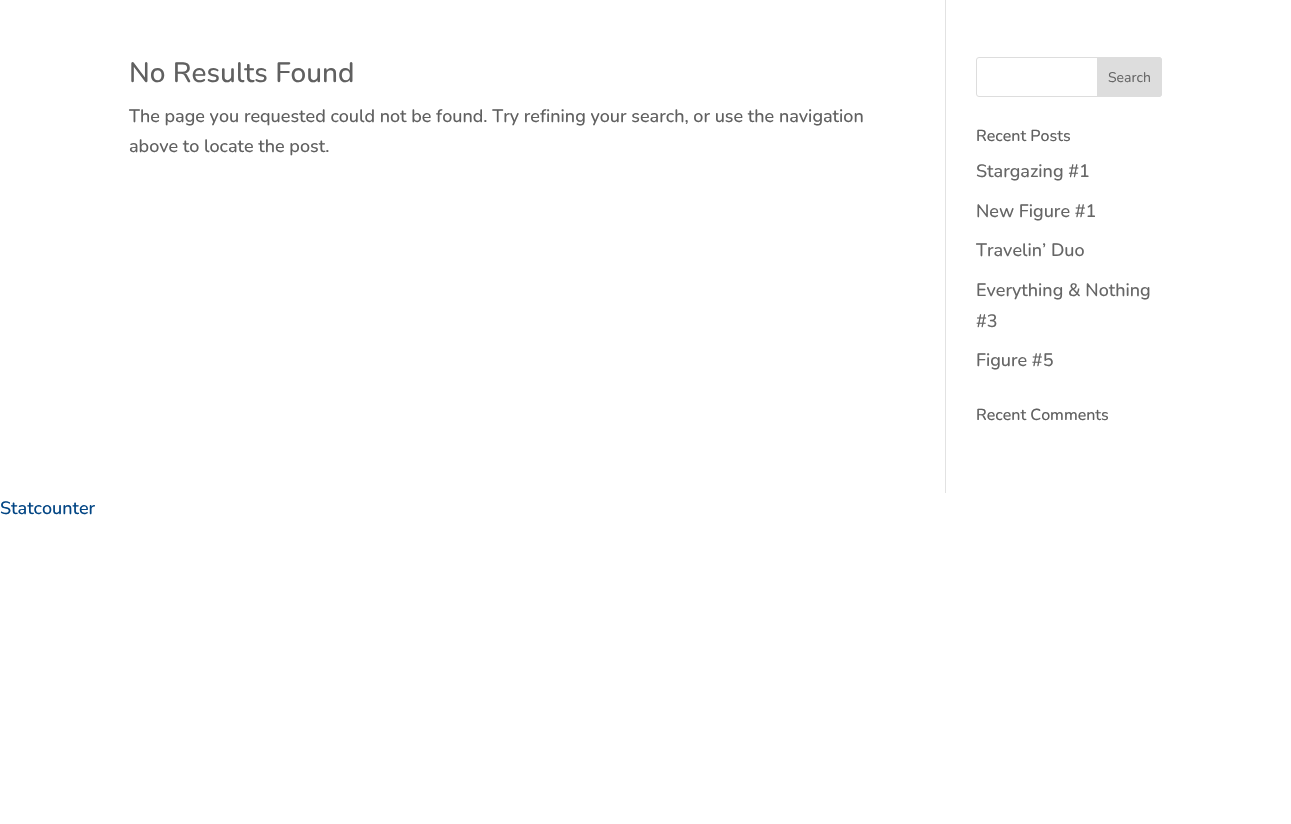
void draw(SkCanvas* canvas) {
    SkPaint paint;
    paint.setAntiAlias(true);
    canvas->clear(0xFFFFFFFF);
    paint.setColor(0xFFE2E2E2);
    canvas->drawRect(SkRect::MakeXYWH(945, 0, 1, 493), paint);
    SkFont font1(fontMgr->matchFamilyStyle("Nunito", SkFontStyle(200, SkFontStyle::kNormal_Width, SkFontStyle::kUpright_Slant)), 28);
    font1.setSubpixel(true);
    paint.setColor(0xFF606060);
    canvas->drawString("No Results Found", 129, 82, font1, paint);
    SkFont font2(fontMgr->matchFamilyStyle("Nunito", SkFontStyle(200, SkFontStyle::kNormal_Width, SkFontStyle::kUpright_Slant)), 18);
    font2.setSubpixel(true);
    canvas->drawString("The page you requested could not be found. Try refining your search, or use the navigation", 129, 122, font2, paint);
    canvas->drawString("above to locate the post.", 129, 152, font2, paint);
    paint.setStyle(SkPaint::kStroke_Style);
    paint.setStrokeWidth(1);
    paint.setColor(0xFFDDDDDD);
    canvas->drawRoundRect(SkRect::MakeXYWH(976.5f, 57.5f, 185, 39), 2.5f, 2.5f, paint);
    paint.setStyle(SkPaint::kFill_Style);
    canvas->drawPath(SkPathBuilder().moveTo(1097.5f, 57.5f).lineTo(1159, 57.5f).cubicTo(1160.5f, 57.5f, 1161.5f, 58.5f, 1161.5f, 60).lineTo(1161.5f, 94).cubicTo(1161.5f, 95.5f, 1160.5f, 96.5f, 1159, 96.5f).lineTo(1097.5f, 96.5f).close().detach(), paint);
    paint.setStyle(SkPaint::kStroke_Style);
    canvas->drawPath(SkPathBuilder().moveTo(1097.5f, 57.5f).lineTo(1159, 57.5f).cubicTo(1160.5f, 57.5f, 1161.5f, 58.5f, 1161.5f, 60).lineTo(1161.5f, 94).cubicTo(1161.5f, 95.5f, 1160.5f, 96.5f, 1159, 96.5f).lineTo(1097.5f, 96.5f).close().detach(), paint);
    SkFont font3(fontMgr->matchFamilyStyle("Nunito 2", SkFontStyle(200, SkFontStyle::kNormal_Width, SkFontStyle::kUpright_Slant)), 14);
    font3.setSubpixel(true);
    paint.setStyle(SkPaint::kFill_Style);
    paint.setColor(0xFF666666);
    canvas->drawString("Search", 1108, 82, font3, paint);
    SkFont font4(fontMgr->matchFamilyStyle("Nunito", SkFontStyle(200, SkFontStyle::kNormal_Width, SkFontStyle::kUpright_Slant)), 16);
    font4.setSubpixel(true);
    paint.setColor(0xFF606060);
    canvas->drawString("Recent Posts", 976, 141, font4, paint);
    paint.setColor(0xFF666666);
    canvas->drawString("Stargazing #1", 976, 177, font2, paint);
    canvas->drawString("New Figure #1", 976, 217, font2, paint);
    canvas->drawString("Travelin’ Duo", 976, 256, font2, paint);
    canvas->drawString("Everything & Nothing", 976, 296, font2, paint);
    canvas->drawString("#3", 976, 327, font2, paint);
    canvas->drawString("Figure #5", 976, 366, font2, paint);
    paint.setColor(0xFF606060);
    canvas->drawString("Recent Comments", 976, 420, font4, paint);
    paint.setColor(0xFF024584);
    canvas->drawString("Statcounter", 0, 514, font2, paint);
}
